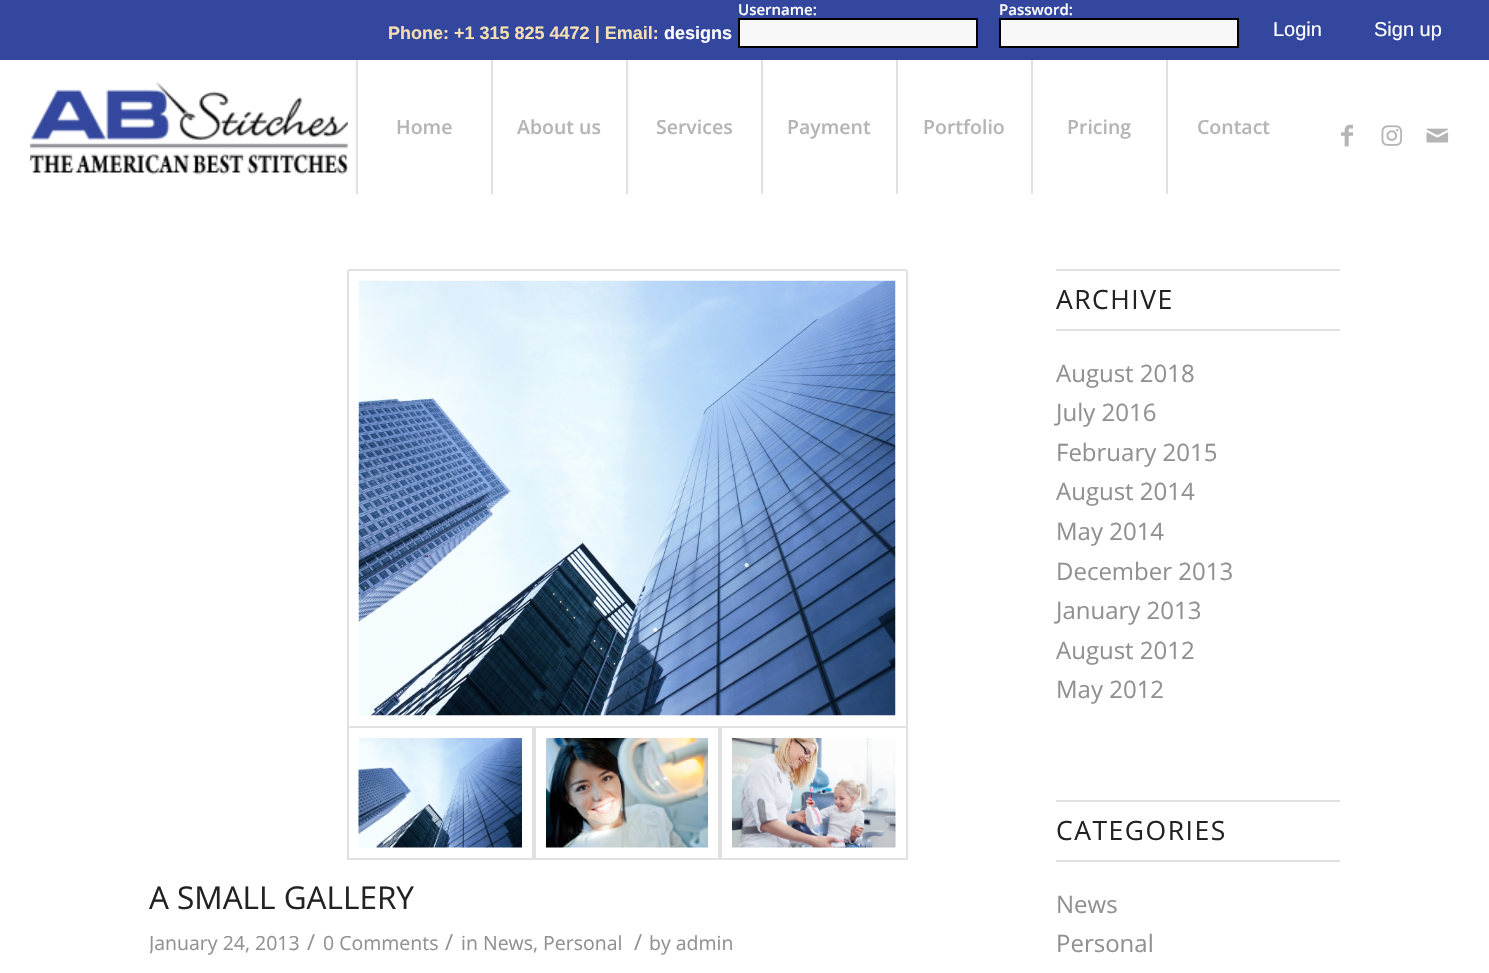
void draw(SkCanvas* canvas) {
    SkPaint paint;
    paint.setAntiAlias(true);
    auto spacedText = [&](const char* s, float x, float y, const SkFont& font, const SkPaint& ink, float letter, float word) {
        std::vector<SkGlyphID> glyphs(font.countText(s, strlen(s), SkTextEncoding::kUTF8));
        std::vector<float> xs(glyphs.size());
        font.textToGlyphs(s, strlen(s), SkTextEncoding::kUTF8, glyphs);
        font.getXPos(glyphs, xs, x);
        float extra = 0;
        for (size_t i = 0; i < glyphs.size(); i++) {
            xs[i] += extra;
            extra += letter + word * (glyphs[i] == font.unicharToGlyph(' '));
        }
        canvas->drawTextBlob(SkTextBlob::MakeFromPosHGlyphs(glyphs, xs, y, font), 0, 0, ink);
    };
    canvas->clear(0xFFFFFFFF);
    paint.setColor(0xFF32479D);
    canvas->drawRect(SkRect::MakeXYWH(0, 0, 1489, 60), paint);
    SkFont font1(fontMgr->matchFamilyStyle("Liberation Sans", SkFontStyle::Bold()), 18);
    font1.setSubpixel(true);
    paint.setColor(0xFFF5DEB3);
    canvas->drawString("Phone: +1 315 825 4472 | Email:", 388, 39, font1, paint);
    paint.setColor(0xFFFFFFFF);
    canvas->drawString("designs", 664, 39, font1, paint);
    SkFont font2(fontMgr->matchFamilyStyle("Open Sans", SkFontStyle(600, SkFontStyle::kNormal_Width, SkFontStyle::kUpright_Slant)), 15);
    font2.setSubpixel(true);
    canvas->drawString("Username:", 738, 15, font2, paint);
    paint.setColor(0xFFF8F8F8);
    canvas->drawRect(SkRect::MakeXYWH(739, 19, 238, 28), paint);
    paint.setStyle(SkPaint::kStroke_Style);
    paint.setStrokeWidth(2);
    paint.setColor(0xFF000000);
    canvas->drawRect(SkRect::MakeXYWH(739, 19, 238, 28), paint);
    paint.setStyle(SkPaint::kFill_Style);
    paint.setColor(0xFFFFFFFF);
    canvas->drawString("Password:", 999, 15, font2, paint);
    paint.setColor(0xFFF8F8F8);
    canvas->drawRect(SkRect::MakeXYWH(1000, 19, 238, 28), paint);
    paint.setStyle(SkPaint::kStroke_Style);
    paint.setColor(0xFF000000);
    canvas->drawRect(SkRect::MakeXYWH(1000, 19, 238, 28), paint);
    SkFont font3(fontMgr->matchFamilyStyle("Liberation Sans", SkFontStyle::Normal()), 20);
    font3.setSubpixel(true);
    paint.setStyle(SkPaint::kFill_Style);
    paint.setColor(0xFFFFFFFF);
    canvas->drawString("Login", 1273, 36, font3, paint);
    canvas->drawString("Sign up", 1374, 36, font3, paint);
    canvas->drawImageRect(SkImages::DeferredFromEncodedData(SkData::MakeFromFileName("img1.png")), SkRect::MakeXYWH(30, 82, 318, 93), SkSamplingOptions());
    paint.setColor(0xFFE1E1E1);
    canvas->drawRect(SkRect::MakeXYWH(356, 60, 2, 134), paint);
    SkFont font4(fontMgr->matchFamilyStyle("Open Sans", SkFontStyle(600, SkFontStyle::kNormal_Width, SkFontStyle::kUpright_Slant)), 19.5f);
    font4.setSubpixel(true);
    paint.setColor(0xFFB5B5B5);
    canvas->drawString("Home", 396, 134, font4, paint);
    paint.setColor(0xFFE1E1E1);
    canvas->drawRect(SkRect::MakeXYWH(491, 60, 2, 134), paint);
    paint.setColor(0xFFB5B5B5);
    canvas->drawString("About us", 517, 134, font4, paint);
    paint.setColor(0xFFE1E1E1);
    canvas->drawRect(SkRect::MakeXYWH(626, 60, 2, 134), paint);
    paint.setColor(0xFFB5B5B5);
    canvas->drawString("Services", 656, 134, font4, paint);
    paint.setColor(0xFFE1E1E1);
    canvas->drawRect(SkRect::MakeXYWH(761, 60, 2, 134), paint);
    paint.setColor(0xFFB5B5B5);
    canvas->drawString("Payment", 787, 134, font4, paint);
    paint.setColor(0xFFE1E1E1);
    canvas->drawRect(SkRect::MakeXYWH(896, 60, 2, 134), paint);
    paint.setColor(0xFFB5B5B5);
    canvas->drawString("Portfolio", 923, 134, font4, paint);
    paint.setColor(0xFFE1E1E1);
    canvas->drawRect(SkRect::MakeXYWH(1031, 60, 2, 134), paint);
    paint.setColor(0xFFB5B5B5);
    canvas->drawString("Pricing", 1067, 134, font4, paint);
    paint.setColor(0xFFE1E1E1);
    canvas->drawRect(SkRect::MakeXYWH(1166, 60, 2, 134), paint);
    paint.setColor(0xFFB5B5B5);
    canvas->drawString("Contact", 1197, 134, font4, paint);
    canvas->drawImageRect(SkImages::DeferredFromEncodedData(SkData::MakeFromFileName("img2.png")), SkRect::MakeXYWH(1341, 124, 12, 23), SkSamplingOptions());
    canvas->drawImageRect(SkImages::DeferredFromEncodedData(SkData::MakeFromFileName("img3.png")), SkRect::MakeXYWH(1381, 125, 22, 21), SkSamplingOptions());
    canvas->drawImageRect(SkImages::DeferredFromEncodedData(SkData::MakeFromFileName("img4.png")), SkRect::MakeXYWH(1426, 128, 23, 15), SkSamplingOptions());
    paint.setStyle(SkPaint::kStroke_Style);
    paint.setColor(0xFFE1E1E1);
    canvas->drawPath(SkPathBuilder().moveTo(350, 270).lineTo(905, 270).cubicTo(906, 270, 907, 271, 907, 272).lineTo(907, 727).lineTo(348, 727).lineTo(348, 272).cubicTo(348, 271, 349, 270, 350, 270).close().detach(), paint);
    canvas->drawImageRect(SkImages::DeferredFromEncodedData(SkData::MakeFromFileName("img5.png")), SkRect::MakeXYWH(358, 280, 538, 436), SkSamplingOptions());
    canvas->drawRect(SkRect::MakeXYWH(348, 727, 185, 132), paint);
    canvas->drawImageRect(SkImages::DeferredFromEncodedData(SkData::MakeFromFileName("img6.png")), SkRect::MakeXYWH(358, 738, 164, 110), SkSamplingOptions());
    canvas->drawRect(SkRect::MakeXYWH(535, 727, 184, 132), paint);
    canvas->drawImageRect(SkImages::DeferredFromEncodedData(SkData::MakeFromFileName("img7.png")), SkRect::MakeXYWH(546, 738, 162, 110), SkSamplingOptions());
    canvas->drawRect(SkRect::MakeXYWH(721, 727, 186, 132), paint);
    canvas->drawImageRect(SkImages::DeferredFromEncodedData(SkData::MakeFromFileName("img8.png")), SkRect::MakeXYWH(732, 738, 164, 110), SkSamplingOptions());
    SkFont font5(fontMgr->matchFamilyStyle("Open Sans", SkFontStyle::Normal()), 31.5f);
    font5.setSubpixel(true);
    paint.setStyle(SkPaint::kFill_Style);
    paint.setColor(0xFF222222);
    canvas->drawString("A SMALL GALLERY", 149, 909, font5, paint);
    canvas->save();
    canvas->clipRect(SkRect::MakeXYWH(150, 878, 833, 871));
    SkFont font6(fontMgr->matchFamilyStyle("Open Sans", SkFontStyle::Normal()), 19.5f);
    font6.setSubpixel(true);
    paint.setColor(0xFF919191);
    canvas->drawString("January 24, 2013", 149, 950, font6, paint);
    canvas->restore();
    SkFont font7(fontMgr->matchFamilyStyle("Open Sans", SkFontStyle::Normal()), 22);
    font7.setSubpixel(true);
    canvas->drawString("/", 307, 950, font7, paint);
    canvas->drawString("0 Comments", 323, 950, font6, paint);
    canvas->drawString("/", 445, 950, font7, paint);
    canvas->drawString("in News, Personal", 461, 950, font6, paint);
    canvas->drawString("/", 634, 950, font7, paint);
    canvas->drawString("by admin", 649, 950, font6, paint);
    paint.setColor(0xFFE1E1E1);
    canvas->drawRect(SkRect::MakeXYWH(1056, 269, 284, 2), paint);
    canvas->drawRect(SkRect::MakeXYWH(1056, 329, 284, 2), paint);
    SkFont font8(fontMgr->matchFamilyStyle("Open Sans", SkFontStyle::Normal()), 26.5f);
    font8.setSubpixel(true);
    paint.setColor(0xFF222222);
    spacedText("ARCHIVE", 1056, 309, font8, paint, 1.5f, 0);
    SkFont font9(fontMgr->matchFamilyStyle("Open Sans", SkFontStyle::Normal()), 24);
    font9.setSubpixel(true);
    paint.setColor(0xFF919191);
    canvas->drawString("August 2018", 1056, 382, font9, paint);
    canvas->drawString("July 2016", 1056, 421, font9, paint);
    canvas->drawString("February 2015", 1056, 461, font9, paint);
    canvas->drawString("August 2014", 1056, 500, font9, paint);
    canvas->drawString("May 2014", 1056, 540, font9, paint);
    canvas->drawString("December 2013", 1056, 580, font9, paint);
    canvas->drawString("January 2013", 1056, 619, font9, paint);
    canvas->drawString("August 2012", 1056, 659, font9, paint);
    canvas->drawString("May 2012", 1056, 698, font9, paint);
    paint.setColor(0xFFE1E1E1);
    canvas->drawRect(SkRect::MakeXYWH(1056, 800, 284, 2), paint);
    canvas->drawRect(SkRect::MakeXYWH(1056, 860, 284, 2), paint);
    paint.setColor(0xFF222222);
    spacedText("CATEGORIES", 1056, 840, font8, paint, 1.5f, 0);
    paint.setColor(0xFF919191);
    canvas->drawString("News", 1056, 913, font9, paint);
    canvas->drawString("Personal", 1056, 952, font9, paint);
}
